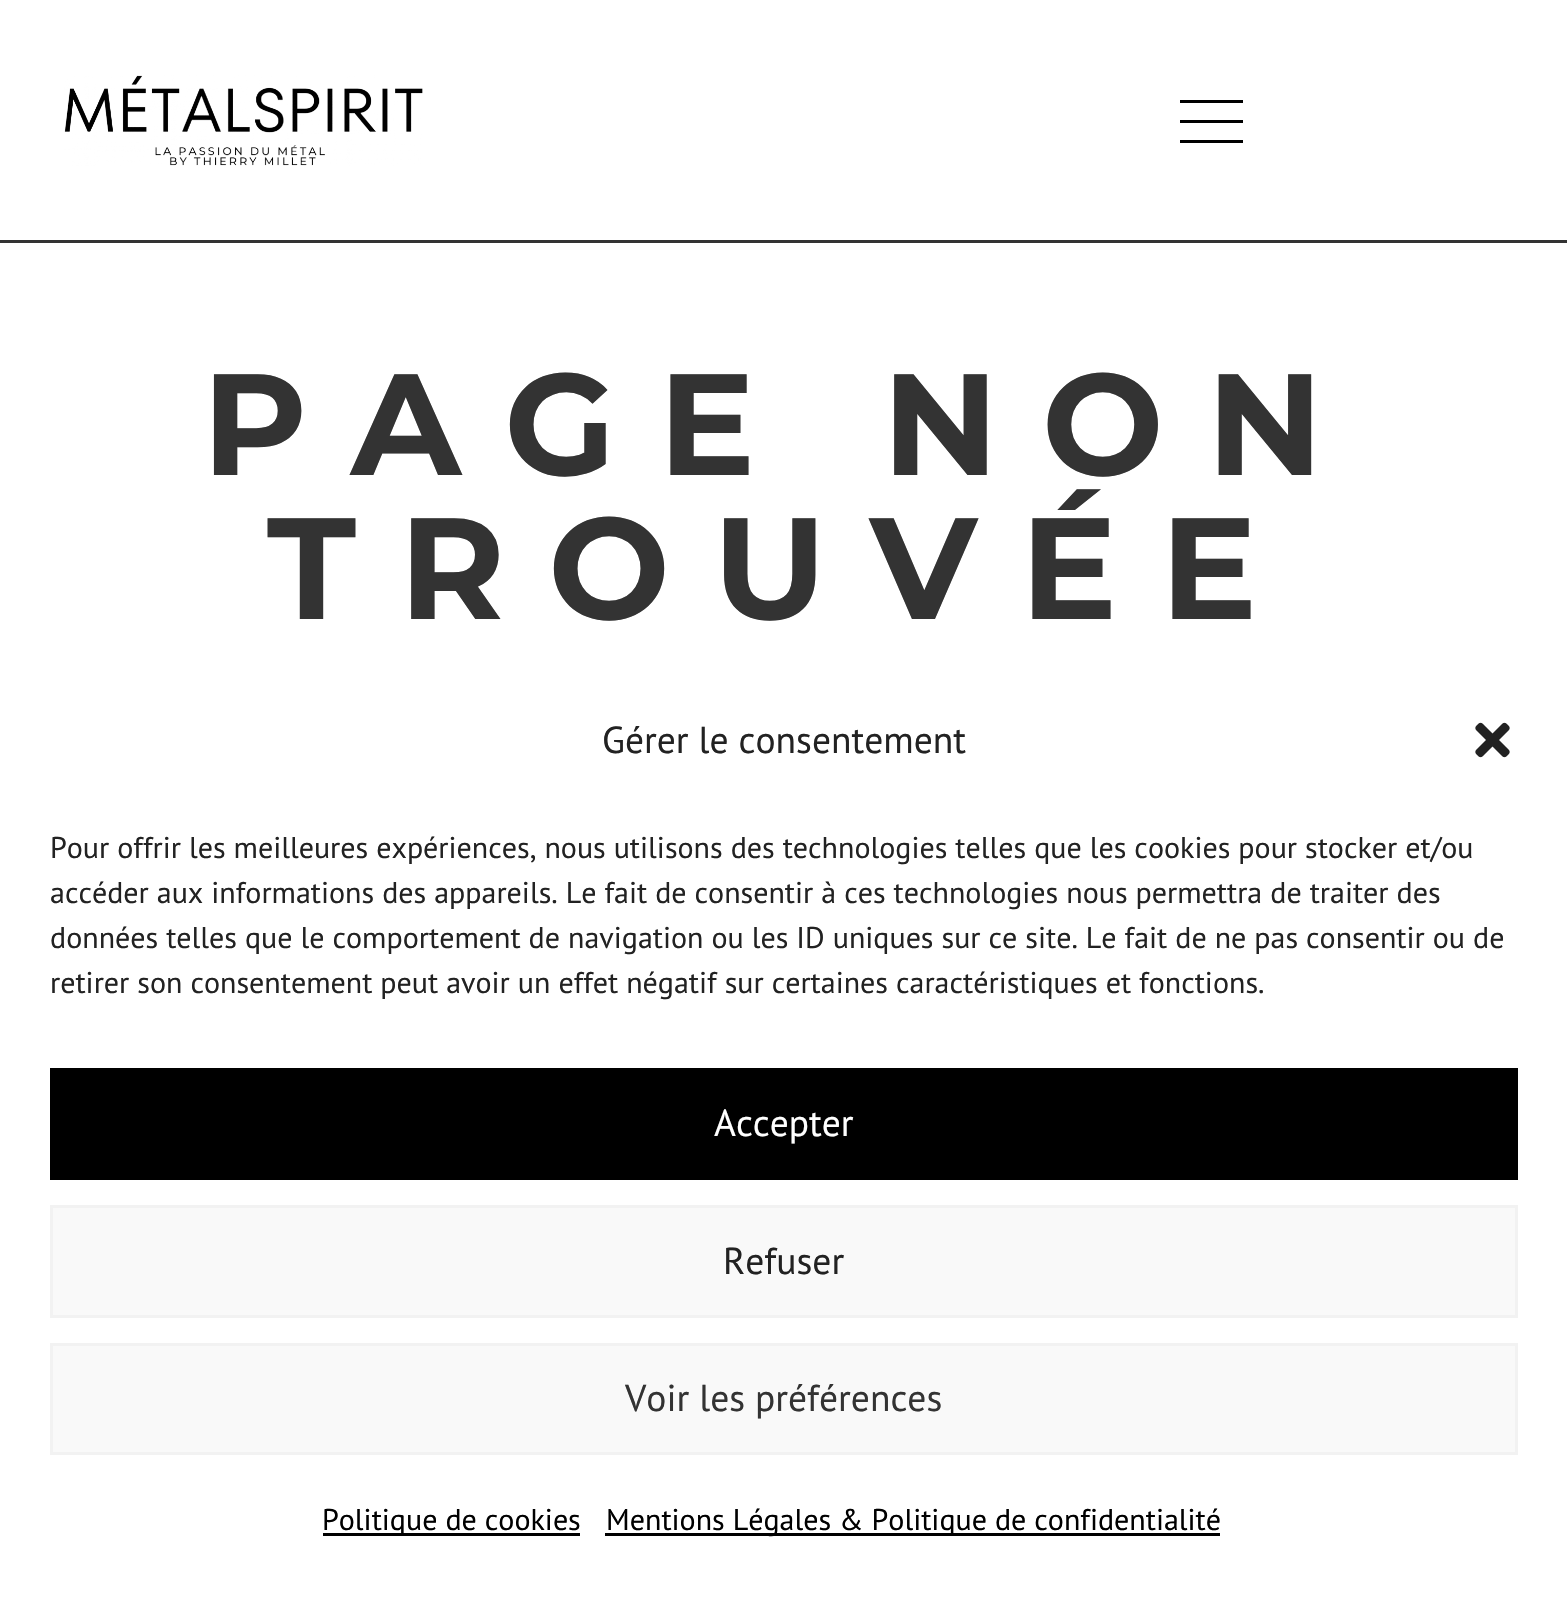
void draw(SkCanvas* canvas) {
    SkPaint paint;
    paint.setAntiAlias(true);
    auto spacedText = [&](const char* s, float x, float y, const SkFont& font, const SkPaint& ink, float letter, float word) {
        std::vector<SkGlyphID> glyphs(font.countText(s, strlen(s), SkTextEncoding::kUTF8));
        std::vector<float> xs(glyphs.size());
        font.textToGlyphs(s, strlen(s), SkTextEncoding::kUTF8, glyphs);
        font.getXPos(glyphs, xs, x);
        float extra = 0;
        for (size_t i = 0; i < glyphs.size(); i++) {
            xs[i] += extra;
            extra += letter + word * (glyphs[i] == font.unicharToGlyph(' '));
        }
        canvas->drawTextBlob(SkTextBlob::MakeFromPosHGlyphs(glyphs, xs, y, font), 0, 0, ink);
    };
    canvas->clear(0xFFFFFFFF);
    paint.setColor(0xFF333333);
    canvas->drawRect(SkRect::MakeXYWH(0, 240, 1567, 3), paint);
    canvas->drawImageRect(SkImages::DeferredFromEncodedData(SkData::MakeFromFileName("img1.png")), SkRect::MakeXYWH(64, 75, 359, 91), SkSamplingOptions());
    paint.setColor(0xFF000000);
    canvas->drawRect(SkRect::MakeXYWH(1180, 120, 63, 3), paint);
    canvas->drawRect(SkRect::MakeXYWH(1180, 100, 63, 3), paint);
    canvas->drawRect(SkRect::MakeXYWH(1180, 140, 63, 3), paint);
    SkFont font1(fontMgr->matchFamilyStyle("Montserrat", SkFontStyle::Bold()), 144);
    font1.setSubpixel(true);
    paint.setColor(0xFF333333);
    spacedText("PAGE NON", 202, 475, font1, paint, 43.25f, 0);
    spacedText("TROUVÉE", 267, 619, font1, paint, 43.25f, 0);
    SkFont font2(fontMgr->matchFamilyStyle("PT Sans", SkFontStyle::Normal()), 37.5f);
    font2.setSubpixel(true);
    paint.setColor(0xFF222222);
    canvas->drawString("Gérer le consentement", 602, 753, font2, paint);
    canvas->drawImageRect(SkImages::DeferredFromEncodedData(SkData::MakeFromFileName("img2.png")), SkRect::MakeXYWH(1475, 722, 35, 36), SkSamplingOptions());
    SkFont font3(fontMgr->matchFamilyStyle("PT Sans", SkFontStyle::Normal()), 30);
    font3.setSubpixel(true);
    canvas->drawString("Pour offrir les meilleures expériences, nous utilisons des technologies telles que les cookies pour stocker et/ou", 50, 858, font3, paint);
    canvas->drawString("accéder aux informations des appareils. Le fait de consentir à ces technologies nous permettra de traiter des", 50, 903, font3, paint);
    canvas->drawString("données telles que le comportement de navigation ou les ID uniques sur ce site. Le fait de ne pas consentir ou de", 50, 948, font3, paint);
    canvas->drawString("retirer son consentement peut avoir un effet négatif sur certaines caractéristiques et fonctions.", 50, 993, font3, paint);
    paint.setColor(0xFF000000);
    canvas->drawRect(SkRect::MakeXYWH(50, 1068, 1468, 112), paint);
    paint.setColor(0xFFFFFFFF);
    canvas->drawString("Accepter", 714, 1136, font2, paint);
    paint.setColor(0xFFF9F9F9);
    canvas->drawRect(SkRect::MakeXYWH(51.5f, 1206.5f, 1465, 110), paint);
    paint.setStyle(SkPaint::kStroke_Style);
    paint.setStrokeWidth(3);
    paint.setColor(0xFFF2F2F2);
    canvas->drawRect(SkRect::MakeXYWH(51.5f, 1206.5f, 1465, 110), paint);
    paint.setStyle(SkPaint::kFill_Style);
    paint.setColor(0xFF222222);
    canvas->drawString("Refuser", 723, 1274, font2, paint);
    paint.setColor(0xFFF9F9F9);
    canvas->drawRect(SkRect::MakeXYWH(51.5f, 1344.5f, 1465, 109), paint);
    paint.setStyle(SkPaint::kStroke_Style);
    paint.setColor(0xFFF2F2F2);
    canvas->drawRect(SkRect::MakeXYWH(51.5f, 1344.5f, 1465, 109), paint);
    paint.setStyle(SkPaint::kFill_Style);
    paint.setColor(0xFF333333);
    canvas->drawString("Voir les préférences", 625, 1411, font2, paint);
    paint.setColor(0xFF000000);
    canvas->drawRect(SkRect::MakeXYWH(323, 1533, 257, 3), paint);
    canvas->drawString("Politique de cookies", 322, 1530, font3, paint);
    canvas->drawRect(SkRect::MakeXYWH(605, 1533, 615, 3), paint);
    canvas->drawString("Mentions Légales & Politique de confidentialité", 606, 1530, font3, paint);
}
